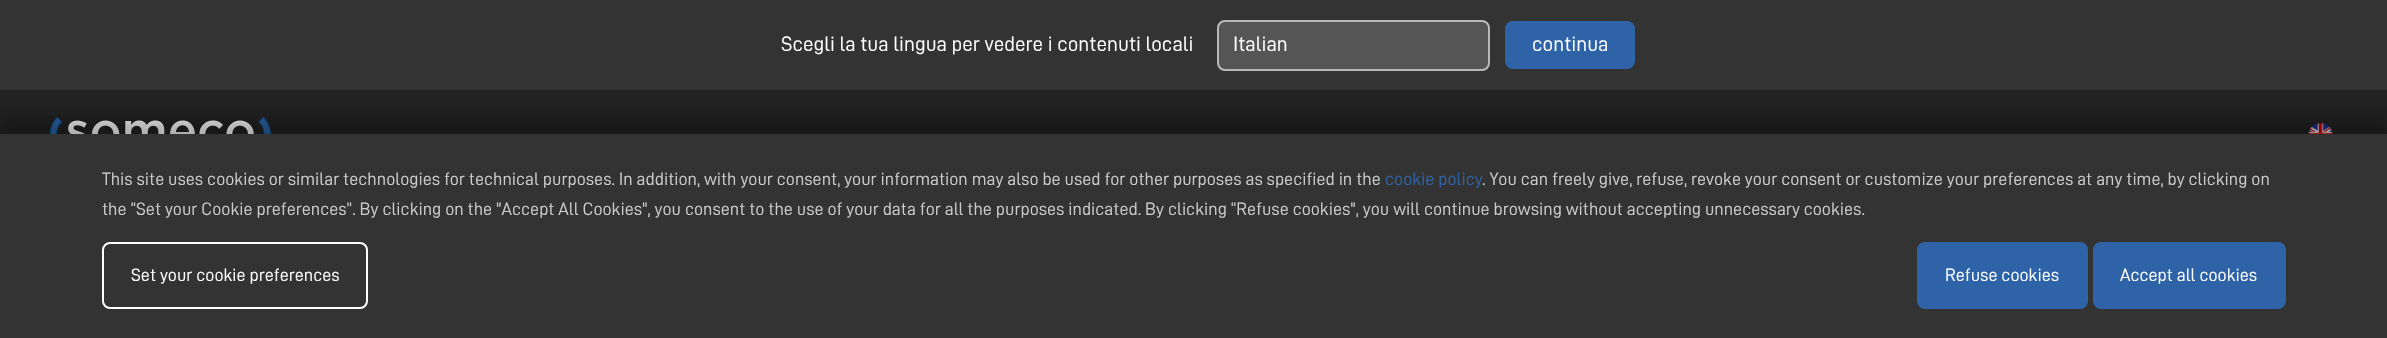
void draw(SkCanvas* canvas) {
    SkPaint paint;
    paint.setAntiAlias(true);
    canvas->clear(0xFF222222);
    paint.setColor(0xFF333333);
    canvas->drawRect(SkRect::MakeXYWH(0, 0, 2387, 90), paint);
    SkFont font1(fontMgr->matchFamilyStyle("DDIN", SkFontStyle::Normal()), 21);
    font1.setSubpixel(true);
    paint.setColor(0xFFFFFFFF);
    canvas->drawString("Scegli la tua lingua per vedere i contenuti locali", 781, 51, font1, paint);
    paint.setColor(0xFF555555);
    canvas->drawRoundRect(SkRect::MakeXYWH(1218, 21, 271, 49), 7, 7, paint);
    paint.setStyle(SkPaint::kStroke_Style);
    paint.setStrokeWidth(2);
    paint.setColor(0xFFB9B9B9);
    canvas->drawRoundRect(SkRect::MakeXYWH(1218, 21, 271, 49), 7, 7, paint);
    paint.setStyle(SkPaint::kFill_Style);
    paint.setColor(0xFFFFFFFF);
    canvas->drawString("Italian", 1233, 51, font1, paint);
    paint.setColor(0xFF2E64A7);
    canvas->drawRoundRect(SkRect::MakeXYWH(1505, 21, 130, 48), 8, 8, paint);
    paint.setColor(0xFFFFFFFF);
    canvas->drawString("continua", 1532, 51, font1, paint);
    canvas->drawImageRect(SkImages::DeferredFromEncodedData(SkData::MakeFromFileName("img1.png")), SkRect::MakeXYWH(49, 117, 222, 17), SkSamplingOptions());
    canvas->drawImageRect(SkImages::DeferredFromEncodedData(SkData::MakeFromFileName("img2.png")), SkRect::MakeXYWH(2308, 123, 25, 11), SkSamplingOptions());
    paint.setColor(0x4D000000);
    paint.setMaskFilter(SkMaskFilter::MakeBlur(kNormal_SkBlurStyle, 7.5f));
    canvas->drawRect(SkRect::MakeXYWH(-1, 117, 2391, 209), paint);
    paint.setMaskFilter(nullptr);
    paint.setColor(0xFF333333);
    canvas->drawRect(SkRect::MakeXYWH(0, 134, 2387, 204), paint);
    SkFont font2(fontMgr->matchFamilyStyle("DDIN", SkFontStyle::Normal()), 18);
    font2.setSubpixel(true);
    paint.setColor(0xFFCCCCCC);
    canvas->drawString("This site uses cookies or similar technologies for technical purposes. In addition, with your consent, your information may also be used for other purposes as specified in the", 102, 185, font2, paint);
    paint.setColor(0xFF2E64A7);
    canvas->drawString("cookie policy", 1385, 185, font2, paint);
    paint.setColor(0xFFCCCCCC);
    canvas->drawString(". You can freely give, refuse, revoke your consent or customize your preferences at any time, by clicking on", 1482, 185, font2, paint);
    canvas->drawString("the “Set your Cookie preferences”. By clicking on the \"Accept All Cookies\", you consent to the use of your data for all the purposes indicated. By clicking “Refuse cookies\", you will continue browsing without accepting unnecessary cookies.", 102, 215, font2, paint);
    paint.setStyle(SkPaint::kStroke_Style);
    paint.setColor(0xFFFFFFFF);
    canvas->drawRoundRect(SkRect::MakeXYWH(103, 243, 264, 65), 7, 7, paint);
    paint.setStyle(SkPaint::kFill_Style);
    canvas->drawString("Set your cookie preferences", 131, 281, font2, paint);
    paint.setColor(0xFF2E64A7);
    canvas->drawRoundRect(SkRect::MakeXYWH(1918, 243, 169, 65), 7, 7, paint);
    paint.setStyle(SkPaint::kStroke_Style);
    canvas->drawRoundRect(SkRect::MakeXYWH(1918, 243, 169, 65), 7, 7, paint);
    paint.setStyle(SkPaint::kFill_Style);
    paint.setColor(0xFFFFFFFF);
    canvas->drawString("Refuse cookies", 1945, 281, font2, paint);
    paint.setColor(0xFF2E64A7);
    canvas->drawRoundRect(SkRect::MakeXYWH(2094, 243, 191, 65), 7, 7, paint);
    paint.setStyle(SkPaint::kStroke_Style);
    canvas->drawRoundRect(SkRect::MakeXYWH(2094, 243, 191, 65), 7, 7, paint);
    paint.setStyle(SkPaint::kFill_Style);
    paint.setColor(0xFFFFFFFF);
    canvas->drawString("Accept all cookies", 2120, 281, font2, paint);
}
